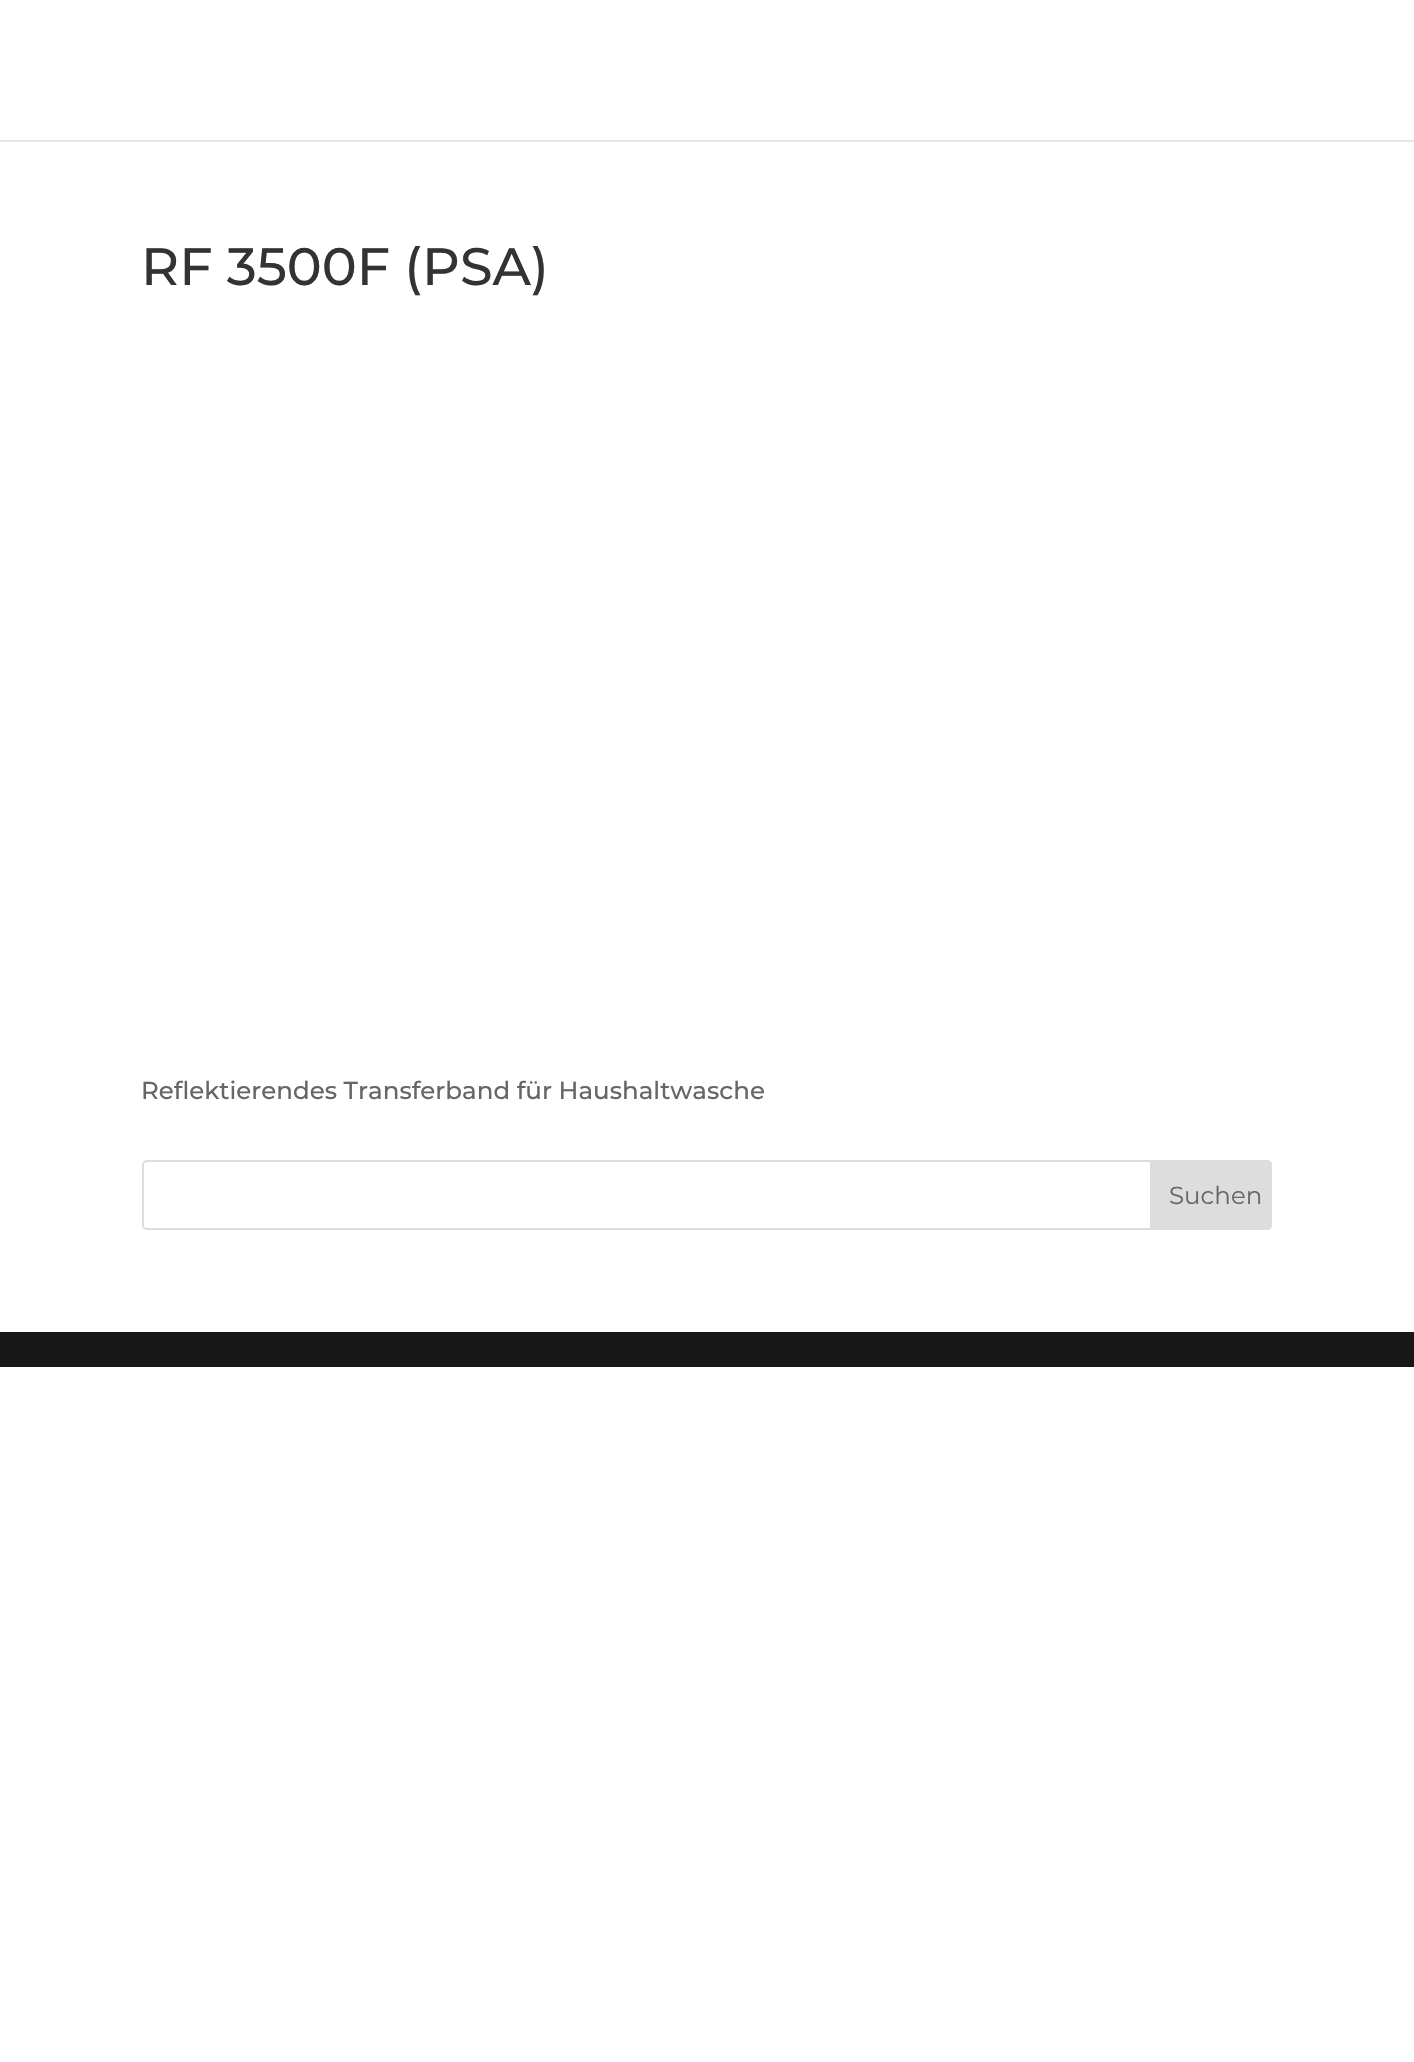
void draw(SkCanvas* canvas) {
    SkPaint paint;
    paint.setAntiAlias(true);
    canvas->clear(0xFFFFFFFF);
    paint.setColor(0xFFE6E6E6);
    canvas->drawRect(SkRect::MakeXYWH(0, 140, 1414, 2), paint);
    SkFont font1(fontMgr->matchFamilyStyle("Montserrat", SkFontStyle(500, SkFontStyle::kNormal_Width, SkFontStyle::kUpright_Slant)), 52.5f);
    font1.setSubpixel(true);
    paint.setColor(0xFF333333);
    canvas->drawString("RF 3500F (PSA)", 141, 285, font1, paint);
    SkFont font2(fontMgr->matchFamilyStyle("Montserrat", SkFontStyle(500, SkFontStyle::kNormal_Width, SkFontStyle::kUpright_Slant)), 24.5f);
    font2.setSubpixel(true);
    paint.setColor(0xFF666666);
    canvas->drawString("Reflektierendes Transferband für Haushaltwasche", 141, 1099, font2, paint);
    paint.setStyle(SkPaint::kStroke_Style);
    paint.setStrokeWidth(2);
    paint.setColor(0xFFDDDDDD);
    canvas->drawRoundRect(SkRect::MakeXYWH(143, 1161, 1128, 68), 4, 4, paint);
    paint.setStyle(SkPaint::kFill_Style);
    canvas->drawPath(SkPathBuilder().moveTo(1151, 1161).lineTo(1267, 1161).cubicTo(1269, 1161, 1271, 1163, 1271, 1165).lineTo(1271, 1225).cubicTo(1271, 1227, 1269, 1229, 1267, 1229).lineTo(1151, 1229).close().detach(), paint);
    paint.setStyle(SkPaint::kStroke_Style);
    canvas->drawPath(SkPathBuilder().moveTo(1151, 1161).lineTo(1267, 1161).cubicTo(1269, 1161, 1271, 1163, 1271, 1165).lineTo(1271, 1225).cubicTo(1271, 1227, 1269, 1229, 1267, 1229).lineTo(1151, 1229).close().detach(), paint);
    SkFont font3(fontMgr->matchFamilyStyle("Montserrat", SkFontStyle::Normal()), 24.5f);
    font3.setSubpixel(true);
    paint.setStyle(SkPaint::kFill_Style);
    paint.setColor(0xFF666666);
    canvas->drawString("Suchen", 1169, 1204, font3, paint);
    paint.setColor(0xFF171717);
    canvas->drawRect(SkRect::MakeXYWH(0, 1332, 1414, 35), paint);
}
